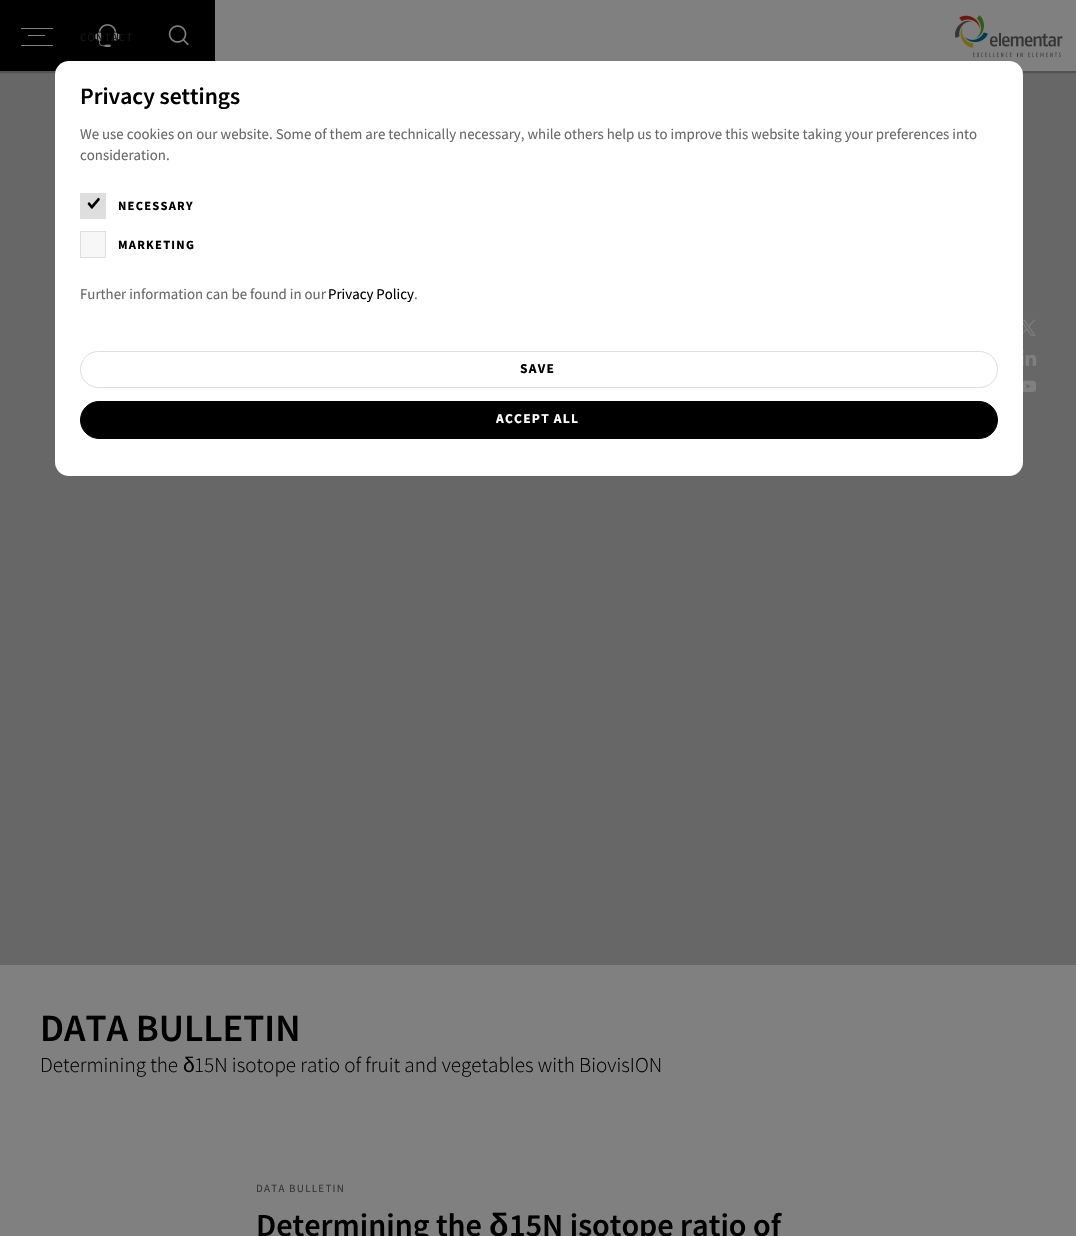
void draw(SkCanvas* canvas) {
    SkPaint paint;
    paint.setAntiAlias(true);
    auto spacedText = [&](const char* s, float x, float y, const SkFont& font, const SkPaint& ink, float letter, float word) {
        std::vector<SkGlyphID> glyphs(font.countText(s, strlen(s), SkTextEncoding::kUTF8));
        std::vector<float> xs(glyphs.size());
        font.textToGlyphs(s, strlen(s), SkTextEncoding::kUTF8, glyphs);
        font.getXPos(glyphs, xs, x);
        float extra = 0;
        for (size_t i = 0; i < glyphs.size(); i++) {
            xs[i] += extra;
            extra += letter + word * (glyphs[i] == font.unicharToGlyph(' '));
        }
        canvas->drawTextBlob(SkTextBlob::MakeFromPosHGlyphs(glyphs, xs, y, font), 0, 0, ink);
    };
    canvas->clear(0xFF808080);
    paint.setColor(0xFF676767);
    canvas->drawRect(SkRect::MakeXYWH(0, 71, 1076, 894), paint);
    canvas->save();
    canvas->clipRect(SkRect::MakeXYWH(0, 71, 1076, 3));
    paint.setColor(0x33000000);
    paint.setMaskFilter(SkMaskFilter::MakeBlur(kNormal_SkBlurStyle, 0.5f));
    canvas->drawRect(SkRect::MakeXYWH(0, 1, 1076, 72), paint);
    paint.setMaskFilter(nullptr);
    canvas->restore();
    paint.setColor(0xFF000000);
    canvas->drawRect(SkRect::MakeXYWH(0, 0, 215, 71), paint);
    paint.setColor(0xFF808080);
    canvas->drawRect(SkRect::MakeXYWH(21, 28, 32, 1), paint);
    canvas->drawRect(SkRect::MakeXYWH(28, 35, 17, 1), paint);
    canvas->drawRect(SkRect::MakeXYWH(21, 45, 32, 1), paint);
    canvas->drawImageRect(SkImages::DeferredFromEncodedData(SkData::MakeFromFileName("img1.png")), SkRect::MakeXYWH(95, 24, 25, 23), SkSamplingOptions());
    SkFont font1(fontMgr->matchFamilyStyle("Source Sans Pro", SkFontStyle::Normal()), 11);
    font1.setSubpixel(true);
    paint.setColor(0xFF151515);
    spacedText("CONTACT", 80, 41, font1, paint, 1.25f, 0);
    canvas->drawImageRect(SkImages::DeferredFromEncodedData(SkData::MakeFromFileName("img2.png")), SkRect::MakeXYWH(168, 25, 21, 21), SkSamplingOptions());
    canvas->drawImageRect(SkImages::DeferredFromEncodedData(SkData::MakeFromFileName("img3.png")), SkRect::MakeXYWH(955, 15, 108, 43), SkSamplingOptions());
    paint.setColor(0xFFFFFFFF);
    canvas->drawRoundRect(SkRect::MakeXYWH(55, 61, 968, 415), 14, 14, paint);
    SkFont font2(fontMgr->matchFamilyStyle("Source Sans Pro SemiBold", SkFontStyle(600, SkFontStyle::kNormal_Width, SkFontStyle::kUpright_Slant)), 23.5f);
    font2.setSubpixel(true);
    paint.setColor(0xFF000000);
    canvas->drawString("Privacy settings", 80, 104, font2, paint);
    SkFont font3(fontMgr->matchFamilyStyle("Source Sans Pro", SkFontStyle::Normal()), 14.85f);
    font3.setSubpixel(true);
    paint.setColor(0xFF696969);
    canvas->drawString("We use cookies on our website. Some of them are technically necessary, while others help us to improve this website taking your preferences into", 80, 139, font3, paint);
    canvas->drawString("consideration.", 80, 160, font3, paint);
    paint.setColor(0xFFDEDEDE);
    canvas->drawRect(SkRect::MakeXYWH(80, 193, 26, 26), paint);
    canvas->drawImageRect(SkImages::DeferredFromEncodedData(SkData::MakeFromFileName("img4.png")), SkRect::MakeXYWH(87, 197, 13, 12), SkSamplingOptions());
    SkFont font4(fontMgr->matchFamilyStyle("Source Sans Pro", SkFontStyle::Bold()), 12.5f);
    font4.setSubpixel(true);
    paint.setColor(0xFF000000);
    spacedText("NECESSARY", 118, 210, font4, paint, 1.25f, 0);
    paint.setColor(0xFFF7F7F7);
    canvas->drawRect(SkRect::MakeXYWH(80.5f, 231.5f, 25, 26), paint);
    paint.setStyle(SkPaint::kStroke_Style);
    paint.setStrokeWidth(1);
    paint.setColor(0xFFDEDEDE);
    canvas->drawRect(SkRect::MakeXYWH(80.5f, 231.5f, 25, 26), paint);
    paint.setStyle(SkPaint::kFill_Style);
    paint.setColor(0xFF000000);
    spacedText("MARKETING", 118, 249, font4, paint, 1.25f, 0);
    paint.setColor(0xFF696969);
    canvas->drawString("Further information can be found in our", 80, 299, font3, paint);
    paint.setColor(0xFF000000);
    canvas->drawString("Privacy Policy", 328, 299, font3, paint);
    paint.setColor(0xFF696969);
    canvas->drawString(".", 414, 299, font3, paint);
    paint.setStyle(SkPaint::kStroke_Style);
    paint.setColor(0xFFDEDEDE);
    canvas->drawRoundRect(SkRect::MakeXYWH(80.5f, 351.5f, 917, 36), 18, 18, paint);
    SkFont font5(fontMgr->matchFamilyStyle("Source Sans Pro", SkFontStyle::Bold()), 13.5f);
    font5.setSubpixel(true);
    paint.setStyle(SkPaint::kFill_Style);
    paint.setColor(0xFF000000);
    spacedText("SAVE", 520, 373, font5, paint, 1.25f, 0);
    canvas->drawRoundRect(SkRect::MakeXYWH(80.5f, 401.5f, 917, 37), 18.5f, 18.5f, paint);
    paint.setStyle(SkPaint::kStroke_Style);
    canvas->drawRoundRect(SkRect::MakeXYWH(80.5f, 401.5f, 917, 37), 18.5f, 18.5f, paint);
    paint.setStyle(SkPaint::kFill_Style);
    paint.setColor(0xFFFFFFFF);
    spacedText("ACCEPT ALL", 496, 423, font5, paint, 1.25f, 0);
    canvas->drawImageRect(SkImages::DeferredFromEncodedData(SkData::MakeFromFileName("img5.png")), SkRect::MakeXYWH(1023, 319, 13, 17), SkSamplingOptions());
    canvas->drawImageRect(SkImages::DeferredFromEncodedData(SkData::MakeFromFileName("img6.png")), SkRect::MakeXYWH(1023, 350, 14, 16), SkSamplingOptions());
    canvas->drawImageRect(SkImages::DeferredFromEncodedData(SkData::MakeFromFileName("img7.png")), SkRect::MakeXYWH(1023, 380, 13, 12), SkSamplingOptions());
    SkFont font6(fontMgr->matchFamilyStyle("Source Sans Pro SemiBold", SkFontStyle(600, SkFontStyle::kNormal_Width, SkFontStyle::kUpright_Slant)), 38.5f);
    font6.setSubpixel(true);
    paint.setColor(0xFF000000);
    canvas->drawString("DATA BULLETIN", 40, 1041, font6, paint);
    SkFont font7(fontMgr->matchFamilyStyle("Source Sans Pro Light", SkFontStyle(300, SkFontStyle::kNormal_Width, SkFontStyle::kUpright_Slant)), 21.1f);
    font7.setSubpixel(true);
    canvas->drawString("Determining the", 40, 1072, font7, paint);
    SkFont font8(fontMgr->matchFamilyStyle("Liberation Sans", SkFontStyle::Normal()), 21.1f);
    font8.setSubpixel(true);
    canvas->drawString("δ", 183, 1072, font8, paint);
    canvas->drawString("15N isotope ratio of fruit and vegetables with BiovisION", 194, 1072, font7, paint);
    paint.setColor(0xFF353535);
    spacedText("DATA BULLETIN", 256, 1192, font1, paint, 1.25f, 0);
    SkFont font9(fontMgr->matchFamilyStyle("Source Sans Pro SemiBold", SkFontStyle(600, SkFontStyle::kNormal_Width, SkFontStyle::kUpright_Slant)), 32.25f);
    font9.setSubpixel(true);
    paint.setColor(0xFF000000);
    canvas->drawString("Determining the", 256, 1236, font9, paint);
    SkFont font10(fontMgr->matchFamilyStyle("Liberation Sans", SkFontStyle::Bold()), 32.25f);
    font10.setSubpixel(true);
    canvas->drawString("δ", 489, 1236, font10, paint);
    canvas->drawString("15N isotope ratio of", 509, 1236, font9, paint);
}
